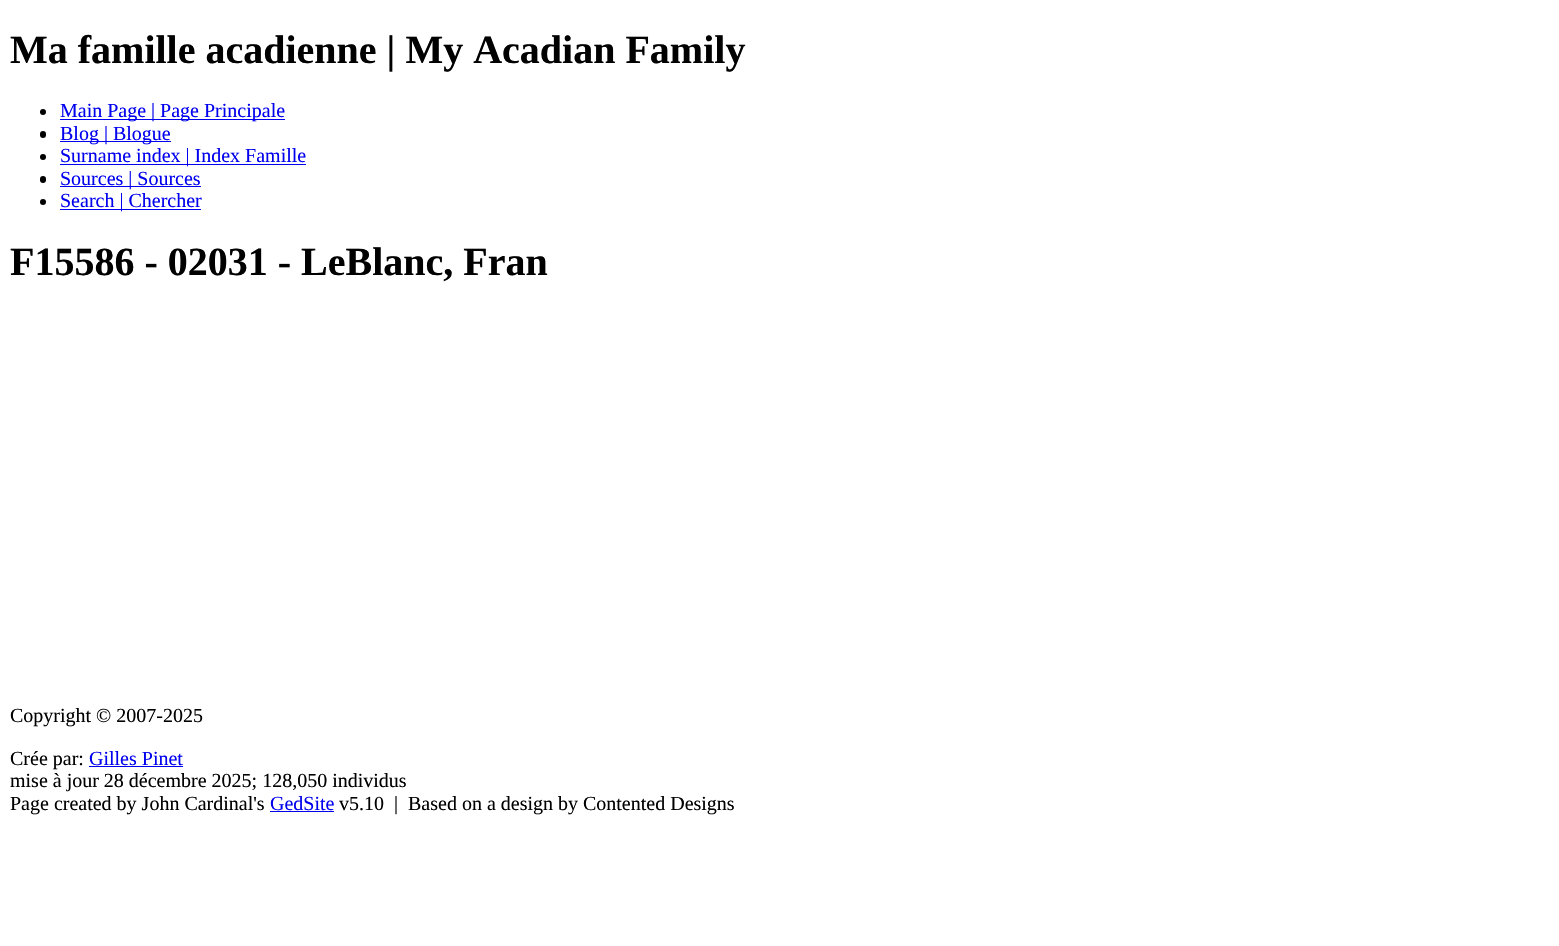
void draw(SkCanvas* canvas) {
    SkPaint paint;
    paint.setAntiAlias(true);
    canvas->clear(0xFFFFFFFF);
    SkFont font1(fontMgr->matchFamilyStyle("Liberation Serif", SkFontStyle::Bold()), 40);
    font1.setSubpixel(true);
    paint.setColor(0xFF000000);
    canvas->drawString("Ma famille acadienne | My Acadian Family", 10, 63, font1, paint);
    canvas->drawCircle(43, 112, 3, paint);
    paint.setColor(0xFF0000EE);
    canvas->drawRect(SkRect::MakeXYWH(60, 119, 225, 1), paint);
    SkFont font2(fontMgr->matchFamilyStyle("Liberation Serif", SkFontStyle::Normal()), 20);
    font2.setSubpixel(true);
    canvas->drawString("Main Page | Page Principale", 60, 117, font2, paint);
    paint.setColor(0xFF000000);
    canvas->drawRoundRect(SkRect::MakeXYWH(40, 131, 6, 7), 3, 3, paint);
    paint.setColor(0xFF0000EE);
    canvas->drawRect(SkRect::MakeXYWH(60, 141, 111, 1), paint);
    canvas->drawString("Blog | Blogue", 60, 140, font2, paint);
    paint.setColor(0xFF000000);
    canvas->drawCircle(43, 157, 3, paint);
    paint.setColor(0xFF0000EE);
    canvas->drawRect(SkRect::MakeXYWH(60, 164, 246, 1), paint);
    canvas->drawString("Surname index | Index Famille", 60, 162, font2, paint);
    paint.setColor(0xFF000000);
    canvas->drawRoundRect(SkRect::MakeXYWH(40, 176, 6, 7), 3, 3, paint);
    paint.setColor(0xFF0000EE);
    canvas->drawRect(SkRect::MakeXYWH(60, 186, 141, 1), paint);
    canvas->drawString("Sources | Sources", 60, 185, font2, paint);
    paint.setColor(0xFF000000);
    canvas->drawCircle(43, 202, 3, paint);
    paint.setColor(0xFF0000EE);
    canvas->drawRect(SkRect::MakeXYWH(60, 209, 141, 1), paint);
    canvas->drawString("Search | Chercher", 60, 207, font2, paint);
    paint.setColor(0xFF000000);
    canvas->drawString("F15586 - 02031 - LeBlanc, Fran", 10, 275, font1, paint);
    canvas->drawString("Copyright © 2007-2025", 10, 722, font2, paint);
    canvas->drawString("Crée par:", 10, 765, font2, paint);
    paint.setColor(0xFF0000EE);
    canvas->drawString("Gilles Pinet", 89, 765, font2, paint);
    canvas->drawRect(SkRect::MakeXYWH(89, 766, 94, 1), paint);
    paint.setColor(0xFF000000);
    canvas->drawString("mise à jour 28 décembre 2025; 128,050 individus", 10, 787, font2, paint);
    canvas->drawString("Page created by John Cardinal's", 10, 810, font2, paint);
    paint.setColor(0xFF0000EE);
    canvas->drawString("GedSite", 270, 810, font2, paint);
    canvas->drawRect(SkRect::MakeXYWH(270, 811, 64, 1), paint);
    paint.setColor(0xFF000000);
    canvas->drawString("v5.10  |  Based on a design by Contented Designs", 339, 810, font2, paint);
}
